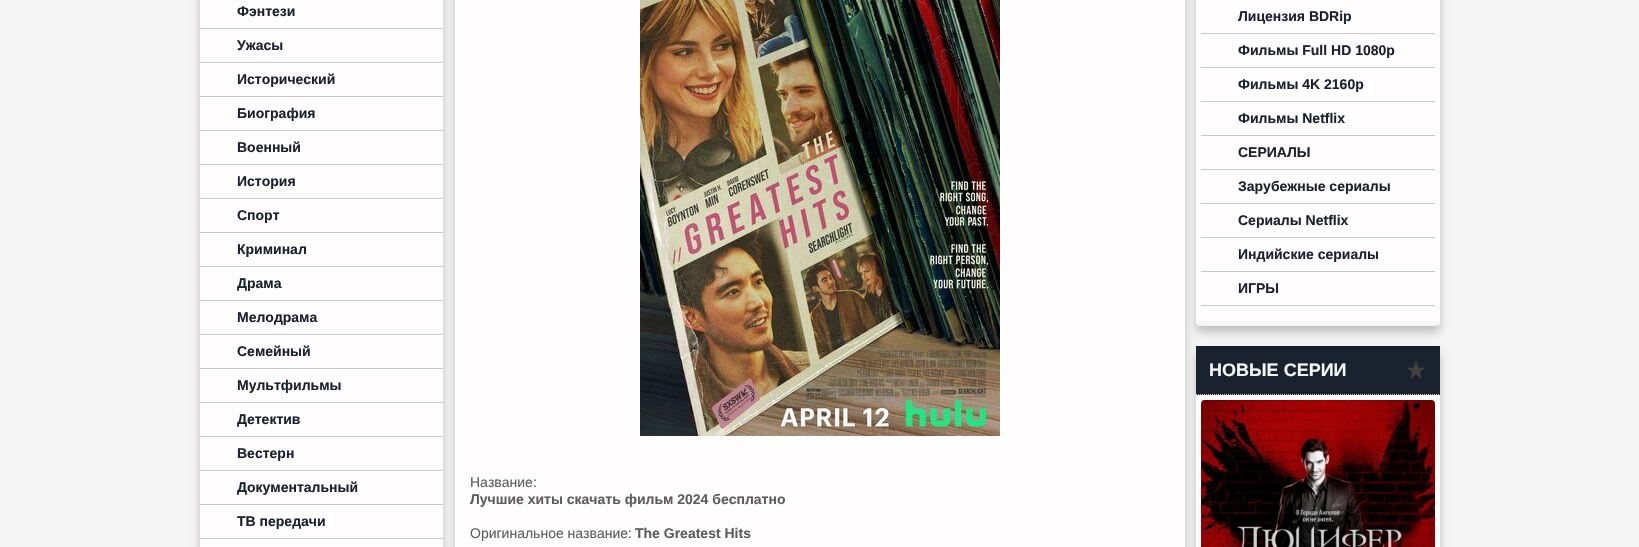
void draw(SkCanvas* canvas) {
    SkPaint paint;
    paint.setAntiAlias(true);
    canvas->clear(0xFFF5F5F5);
    paint.setColor(0xFFBEBEBE);
    paint.setMaskFilter(SkMaskFilter::MakeBlur(kNormal_SkBlurStyle, 5));
    canvas->drawRoundRect(SkRect::MakeXYWH(455, -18, 730, 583), 3, 3, paint);
    paint.setMaskFilter(nullptr);
    paint.setColor(0xFFFFFDFD);
    canvas->drawRect(SkRect::MakeXYWH(455, 0, 730, 547), paint);
    paint.setColor(0xFFBEBEBE);
    paint.setMaskFilter(SkMaskFilter::MakeBlur(kNormal_SkBlurStyle, 5));
    canvas->drawRoundRect(SkRect::MakeXYWH(200, -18, 243, 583), 3, 3, paint);
    paint.setMaskFilter(nullptr);
    paint.setColor(0xFFFFFDFD);
    canvas->drawRect(SkRect::MakeXYWH(200, 0, 243, 547), paint);
    paint.setColor(0xFFC9C8C8);
    canvas->drawRect(SkRect::MakeXYWH(200, 28, 243, 1), paint);
    SkFont font1(fontMgr->matchFamilyStyle("Liberation Sans", SkFontStyle::Bold()), 14);
    font1.setSubpixel(true);
    paint.setColor(0xFF1A222F);
    canvas->drawString("Фэнтези", 237, 16, font1, paint);
    paint.setColor(0xFFC9C8C8);
    canvas->drawRect(SkRect::MakeXYWH(200, 62, 243, 1), paint);
    paint.setColor(0xFF1A222F);
    canvas->drawString("Ужасы", 237, 50, font1, paint);
    paint.setColor(0xFFC9C8C8);
    canvas->drawRect(SkRect::MakeXYWH(200, 96, 243, 1), paint);
    paint.setColor(0xFF1A222F);
    canvas->drawString("Исторический", 237, 84, font1, paint);
    paint.setColor(0xFFC9C8C8);
    canvas->drawRect(SkRect::MakeXYWH(200, 130, 243, 1), paint);
    paint.setColor(0xFF1A222F);
    canvas->drawString("Биография", 237, 118, font1, paint);
    paint.setColor(0xFFC9C8C8);
    canvas->drawRect(SkRect::MakeXYWH(200, 164, 243, 1), paint);
    paint.setColor(0xFF1A222F);
    canvas->drawString("Военный", 237, 152, font1, paint);
    paint.setColor(0xFFC9C8C8);
    canvas->drawRect(SkRect::MakeXYWH(200, 198, 243, 1), paint);
    paint.setColor(0xFF1A222F);
    canvas->drawString("История", 237, 186, font1, paint);
    paint.setColor(0xFFC9C8C8);
    canvas->drawRect(SkRect::MakeXYWH(200, 232, 243, 1), paint);
    paint.setColor(0xFF1A222F);
    canvas->drawString("Спорт", 237, 220, font1, paint);
    paint.setColor(0xFFC9C8C8);
    canvas->drawRect(SkRect::MakeXYWH(200, 266, 243, 1), paint);
    paint.setColor(0xFF1A222F);
    canvas->drawString("Криминал", 237, 254, font1, paint);
    paint.setColor(0xFFC9C8C8);
    canvas->drawRect(SkRect::MakeXYWH(200, 300, 243, 1), paint);
    paint.setColor(0xFF1A222F);
    canvas->drawString("Драма", 237, 288, font1, paint);
    paint.setColor(0xFFC9C8C8);
    canvas->drawRect(SkRect::MakeXYWH(200, 334, 243, 1), paint);
    paint.setColor(0xFF1A222F);
    canvas->drawString("Мелодрама", 237, 322, font1, paint);
    paint.setColor(0xFFC9C8C8);
    canvas->drawRect(SkRect::MakeXYWH(200, 368, 243, 1), paint);
    paint.setColor(0xFF1A222F);
    canvas->drawString("Семейный", 237, 356, font1, paint);
    paint.setColor(0xFFC9C8C8);
    canvas->drawRect(SkRect::MakeXYWH(200, 402, 243, 1), paint);
    paint.setColor(0xFF1A222F);
    canvas->drawString("Мультфильмы", 237, 390, font1, paint);
    paint.setColor(0xFFC9C8C8);
    canvas->drawRect(SkRect::MakeXYWH(200, 436, 243, 1), paint);
    paint.setColor(0xFF1A222F);
    canvas->drawString("Детектив", 237, 424, font1, paint);
    paint.setColor(0xFFC9C8C8);
    canvas->drawRect(SkRect::MakeXYWH(200, 470, 243, 1), paint);
    paint.setColor(0xFF1A222F);
    canvas->drawString("Вестерн", 237, 458, font1, paint);
    paint.setColor(0xFFC9C8C8);
    canvas->drawRect(SkRect::MakeXYWH(200, 504, 243, 1), paint);
    paint.setColor(0xFF1A222F);
    canvas->drawString("Документальный", 237, 492, font1, paint);
    paint.setColor(0xFFC9C8C8);
    canvas->drawRect(SkRect::MakeXYWH(200, 538, 243, 1), paint);
    paint.setColor(0xFF1A222F);
    canvas->drawString("ТВ передачи", 237, 526, font1, paint);
    paint.setColor(0xFFBEBEBE);
    paint.setMaskFilter(SkMaskFilter::MakeBlur(kNormal_SkBlurStyle, 5));
    canvas->drawRoundRect(SkRect::MakeXYWH(1196, -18, 244, 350), 3, 3, paint);
    paint.setMaskFilter(nullptr);
    paint.setColor(0xFFF1F1F1);
    canvas->drawPath(SkPathBuilder().moveTo(1196, 322).cubicTo(1196, 324, 1197, 326, 1199, 326).lineTo(1437, 326).cubicTo(1439, 326, 1440, 324, 1440, 322).cubicTo(1440, 324, 1439, 325, 1437, 325).lineTo(1199, 325).cubicTo(1197, 325, 1196, 324, 1196, 322).close().detach(), paint);
    paint.setColor(0xFFFFFDFD);
    canvas->drawRoundRect(SkRect::MakeXYWH(1196, -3, 244, 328), 3, 3, paint);
    paint.setColor(0xFFF7F5F5);
    canvas->drawRect(SkRect::MakeXYWH(1198, 321, 241, 4), paint);
    paint.setColor(0xFFC9C8C8);
    canvas->drawRect(SkRect::MakeXYWH(1201, 33, 234, 1), paint);
    paint.setColor(0xFF1A222F);
    canvas->drawString("Лицензия BDRip", 1238, 21, font1, paint);
    paint.setColor(0xFFC9C8C8);
    canvas->drawRect(SkRect::MakeXYWH(1201, 67, 234, 1), paint);
    paint.setColor(0xFF1A222F);
    canvas->drawString("Фильмы Full HD 1080p", 1238, 55, font1, paint);
    paint.setColor(0xFFC9C8C8);
    canvas->drawRect(SkRect::MakeXYWH(1201, 101, 234, 1), paint);
    paint.setColor(0xFF1A222F);
    canvas->drawString("Фильмы 4K 2160p", 1238, 89, font1, paint);
    paint.setColor(0xFFC9C8C8);
    canvas->drawRect(SkRect::MakeXYWH(1201, 135, 234, 1), paint);
    paint.setColor(0xFF1A222F);
    canvas->drawString("Фильмы Netflix", 1238, 123, font1, paint);
    paint.setColor(0xFFC9C8C8);
    canvas->drawRect(SkRect::MakeXYWH(1201, 169, 234, 1), paint);
    paint.setColor(0xFF1A222F);
    canvas->drawString("СЕРИАЛЫ", 1238, 157, font1, paint);
    paint.setColor(0xFFC9C8C8);
    canvas->drawRect(SkRect::MakeXYWH(1201, 203, 234, 1), paint);
    paint.setColor(0xFF1A222F);
    canvas->drawString("Зарубежные сериалы", 1238, 191, font1, paint);
    paint.setColor(0xFFC9C8C8);
    canvas->drawRect(SkRect::MakeXYWH(1201, 237, 234, 1), paint);
    paint.setColor(0xFF1A222F);
    canvas->drawString("Сериалы Netflix", 1238, 225, font1, paint);
    paint.setColor(0xFFC9C8C8);
    canvas->drawRect(SkRect::MakeXYWH(1201, 271, 234, 1), paint);
    paint.setColor(0xFF1A222F);
    canvas->drawString("Индийские сериалы", 1238, 259, font1, paint);
    paint.setColor(0xFFC9C8C8);
    canvas->drawRect(SkRect::MakeXYWH(1201, 305, 234, 1), paint);
    paint.setColor(0xFF1A222F);
    canvas->drawString("ИГРЫ", 1238, 293, font1, paint);
    paint.setColor(0xFFBEBEBE);
    paint.setMaskFilter(SkMaskFilter::MakeBlur(kNormal_SkBlurStyle, 5));
    canvas->drawRoundRect(SkRect::MakeXYWH(1196, 353, 244, 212), 3, 3, paint);
    paint.setMaskFilter(nullptr);
    paint.setColor(0xFFFFFDFD);
    canvas->drawRect(SkRect::MakeXYWH(1196, 395, 244, 152), paint);
    paint.setColor(0xFF1A222F);
    canvas->drawRect(SkRect::MakeXYWH(1196, 346, 244, 49), paint);
    paint.setStyle(SkPaint::kStroke_Style);
    paint.setStrokeWidth(1);
    paint.setColor(0xFFC9C8C8);
    paint.setPathEffect(SkDashPathEffect::Make({{1, 1}}, 0));
    canvas->drawPath(SkPathBuilder().moveTo(1196, 394.5f).lineTo(1440, 394.5f).detach(), paint);
    paint.setPathEffect(nullptr);
    SkFont font2(fontMgr->matchFamilyStyle("Liberation Sans", SkFontStyle::Bold()), 18);
    font2.setSubpixel(true);
    paint.setStyle(SkPaint::kFill_Style);
    paint.setColor(0xFFF5F5F5);
    canvas->drawString("НОВЫЕ СЕРИИ", 1209, 376, font2, paint);
    canvas->drawImageRect(SkImages::DeferredFromEncodedData(SkData::MakeFromFileName("img1.png")), SkRect::MakeXYWH(1407, 361, 18, 18), SkSamplingOptions());
    canvas->drawImageRect(SkImages::DeferredFromEncodedData(SkData::MakeFromFileName("img2.png")), SkRect::MakeXYWH(1201, 400, 234, 147), SkSamplingOptions());
    canvas->drawImageRect(SkImages::DeferredFromEncodedData(SkData::MakeFromFileName("img3.png")), SkRect::MakeXYWH(640, 0, 360, 436), SkSamplingOptions());
    SkFont font3(fontMgr->matchFamilyStyle("Liberation Sans", SkFontStyle::Normal()), 14);
    font3.setSubpixel(true);
    paint.setColor(0xFF5D5D5C);
    canvas->drawString("Название:", 470, 487, font3, paint);
    canvas->drawString("Лучшие хиты скачать фильм 2024 бесплатно", 470, 504, font1, paint);
    canvas->drawString("Оригинальное название:", 470, 538, font3, paint);
    canvas->drawString("The Greatest Hits", 635, 538, font1, paint);
}
